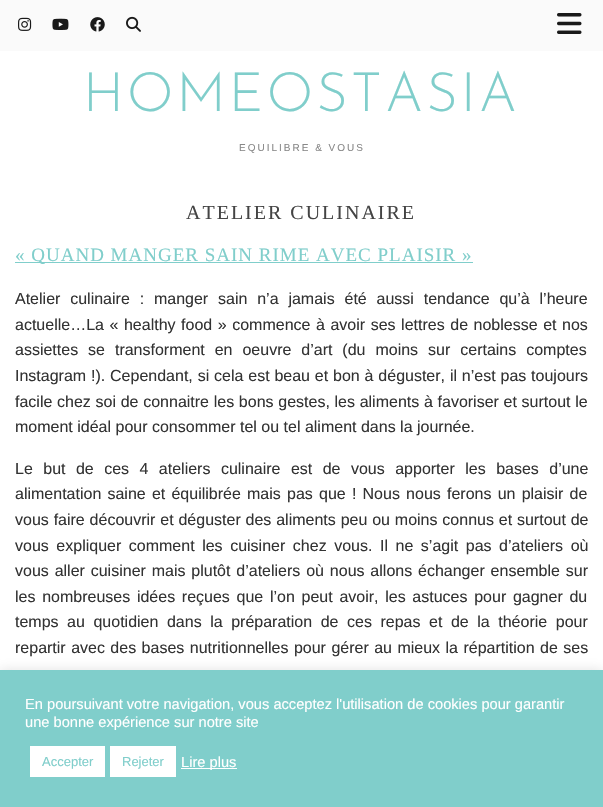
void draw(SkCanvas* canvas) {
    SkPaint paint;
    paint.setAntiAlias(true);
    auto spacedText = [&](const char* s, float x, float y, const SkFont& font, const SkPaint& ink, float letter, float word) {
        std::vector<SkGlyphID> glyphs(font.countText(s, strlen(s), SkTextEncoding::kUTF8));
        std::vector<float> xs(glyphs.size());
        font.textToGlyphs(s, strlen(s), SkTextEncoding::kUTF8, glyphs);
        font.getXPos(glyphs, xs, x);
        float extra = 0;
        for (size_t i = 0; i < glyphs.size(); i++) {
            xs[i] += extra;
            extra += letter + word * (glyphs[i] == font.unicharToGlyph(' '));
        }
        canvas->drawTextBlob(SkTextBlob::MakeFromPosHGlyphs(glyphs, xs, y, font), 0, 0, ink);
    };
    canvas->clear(0xFFFFFFFF);
    paint.setColor(0xFFFAFAFA);
    canvas->drawRect(SkRect::MakeXYWH(0, 0, 603, 51), paint);
    canvas->drawImageRect(SkImages::DeferredFromEncodedData(SkData::MakeFromFileName("img1.png")), SkRect::MakeXYWH(18, 17, 14, 14), SkSamplingOptions());
    canvas->drawImageRect(SkImages::DeferredFromEncodedData(SkData::MakeFromFileName("img2.png")), SkRect::MakeXYWH(52, 18, 17, 12), SkSamplingOptions());
    canvas->drawImageRect(SkImages::DeferredFromEncodedData(SkData::MakeFromFileName("img3.png")), SkRect::MakeXYWH(90, 17, 15, 15), SkSamplingOptions());
    canvas->drawImageRect(SkImages::DeferredFromEncodedData(SkData::MakeFromFileName("img4.png")), SkRect::MakeXYWH(126, 16, 15, 16), SkSamplingOptions());
    canvas->drawImageRect(SkImages::DeferredFromEncodedData(SkData::MakeFromFileName("img5.png")), SkRect::MakeXYWH(557, 13, 25, 21), SkSamplingOptions());
    SkFont font1(fontMgr->matchFamilyStyle("Josefin Sans", SkFontStyle(100, SkFontStyle::kNormal_Width, SkFontStyle::kUpright_Slant)), 54.25f);
    font1.setSubpixel(true);
    paint.setColor(0xFF80CECB);
    spacedText("HOMEOSTASIA", 83, 111, font1, paint, 3, 0);
    SkFont font2(fontMgr->matchFamilyStyle("Liberation Sans", SkFontStyle::Normal()), 10);
    font2.setSubpixel(true);
    paint.setColor(0xFF888888);
    spacedText("EQUILIBRE & VOUS", 239, 151, font2, paint, 2, 0);
    SkFont font3(fontMgr->matchFamilyStyle("Liberation Serif", SkFontStyle::Normal()), 20);
    font3.setSubpixel(true);
    paint.setColor(0xFF444444);
    spacedText("ATELIER CULINAIRE", 186, 219, font3, paint, 2, 0);
    paint.setColor(0xFF80CECB);
    canvas->drawRect(SkRect::MakeXYWH(15, 262, 458, 1), paint);
    SkFont font4(fontMgr->matchFamilyStyle("Liberation Serif", SkFontStyle::Normal()), 19);
    font4.setSubpixel(true);
    spacedText("« QUAND MANGER SAIN RIME AVEC PLAISIR »", 15, 261, font4, paint, 1, 0);
    SkFont font5(fontMgr->matchFamilyStyle("Liberation Sans", SkFontStyle::Normal()), 16);
    font5.setSubpixel(true);
    paint.setColor(0xFF333333);
    spacedText("Atelier culinaire : manger sain n’a jamais été aussi tendance qu’à l’heure", 15, 304, font5, paint, 0, 5.4f);
    spacedText("actuelle…La « healthy food » commence à avoir ses lettres de noblesse et nos", 15, 330, font5, paint, 0, 1.1f);
    spacedText("assiettes se transforment en oeuvre d’art (du moins sur certains comptes", 15, 355, font5, paint, 0, 5.5f);
    spacedText("Instagram !). Cependant, si cela est beau et bon à déguster, il n’est pas toujours", 15, 381, font5, paint, 0, 0.4f);
    spacedText("facile chez soi de connaitre les bons gestes, les aliments à favoriser et surtout le", 15, 407, font5, paint, 0, 0.25f);
    canvas->drawString("moment idéal pour consommer tel ou tel aliment dans la journée.", 15, 432, font5, paint);
    spacedText("Le but de ces 4 ateliers culinaire est de vous apporter les bases d’une", 15, 474, font5, paint, 0, 6);
    spacedText("alimentation saine et équilibrée mais pas que ! Nous nous ferons un plaisir de", 15, 499, font5, paint, 0, 1.75f);
    spacedText("vous faire découvrir et déguster des aliments peu ou moins connus et surtout de", 15, 525, font5, paint, 0, 0.4f);
    spacedText("vous expliquer comment les cuisiner chez vous. Il ne s’agit pas d’ateliers où", 15, 551, font5, paint, 0, 3.1f);
    spacedText("vous aller cuisiner mais plutôt d’ateliers où nous allons échanger ensemble sur", 15, 576, font5, paint, 0, 1.4f);
    spacedText("les nombreuses idées reçues que l’on peut avoir, les astuces pour gagner du", 15, 602, font5, paint, 0, 2.25f);
    spacedText("temps au quotidien dans la préparation de ces repas et de la théorie pour", 15, 627, font5, paint, 0, 4.1f);
    spacedText("repartir avec des bases nutritionnelles pour gérer au mieux la répartition de ses", 15, 653, font5, paint, 0, 1);
    paint.setColor(0x4DACABAB);
    paint.setMaskFilter(SkMaskFilter::MakeBlur(kNormal_SkBlurStyle, 5));
    canvas->drawRect(SkRect::MakeXYWH(0, 669, 603, 137), paint);
    paint.setMaskFilter(nullptr);
    paint.setColor(0xFF80CECB);
    canvas->drawRect(SkRect::MakeXYWH(0, 670, 603, 137), paint);
    SkFont font6(fontMgr->matchFamilyStyle("Liberation Sans", SkFontStyle::Normal()), 14.65f);
    font6.setSubpixel(true);
    paint.setColor(0xFFFFFFFF);
    canvas->drawString("En poursuivant votre navigation, vous acceptez l'utilisation de cookies pour garantir", 25, 709, font6, paint);
    canvas->drawString("une bonne expérience sur notre site", 25, 727, font6, paint);
    canvas->drawRect(SkRect::MakeXYWH(30, 746, 75, 31), paint);
    SkFont font7(fontMgr->matchFamilyStyle("Liberation Sans", SkFontStyle::Normal()), 13);
    font7.setSubpixel(true);
    paint.setColor(0xFF80CECB);
    canvas->drawString("Accepter", 42, 766, font7, paint);
    paint.setColor(0xFFFFFFFF);
    canvas->drawRect(SkRect::MakeXYWH(110, 746, 66, 31), paint);
    paint.setColor(0xFF80CECB);
    canvas->drawString("Rejeter", 122, 766, font7, paint);
    paint.setColor(0xFFFFFFFF);
    canvas->drawRect(SkRect::MakeXYWH(181, 768, 56, 1), paint);
    canvas->drawString("Lire plus", 181, 767, font6, paint);
}
